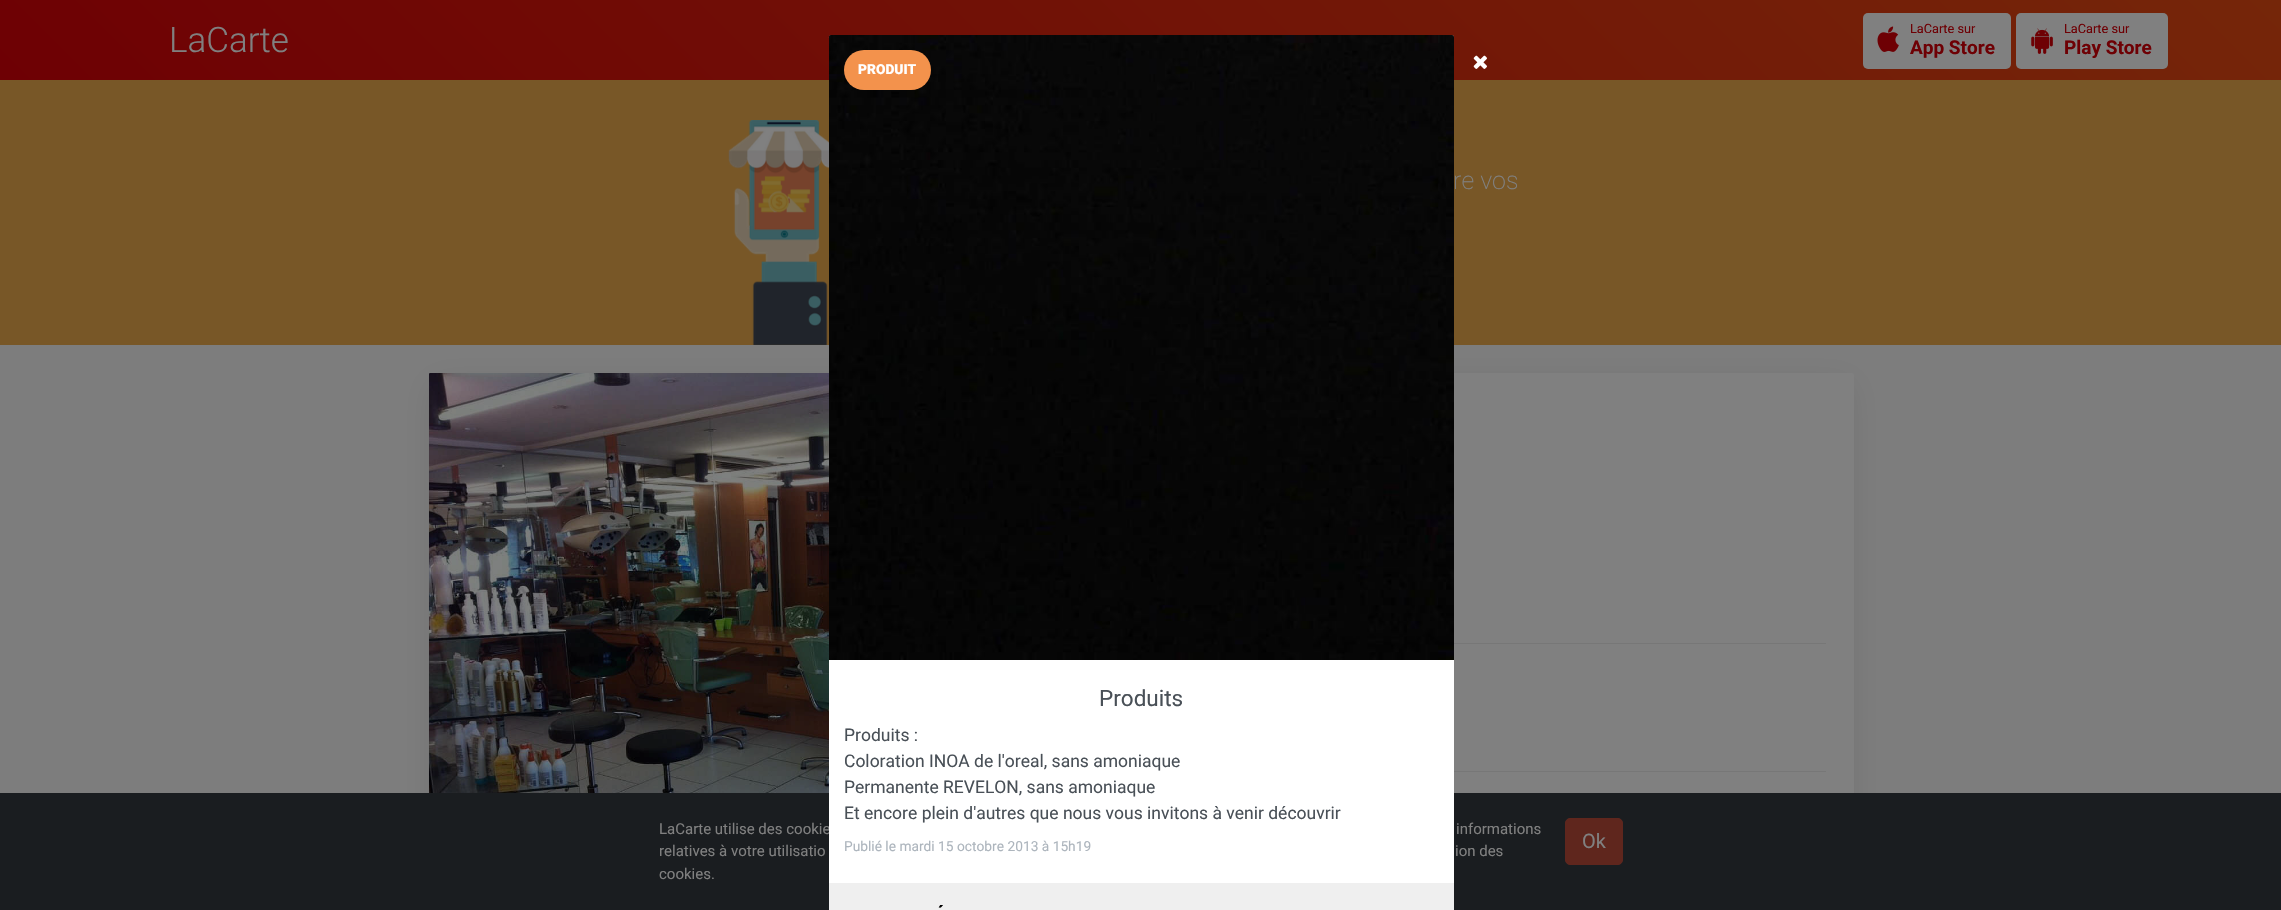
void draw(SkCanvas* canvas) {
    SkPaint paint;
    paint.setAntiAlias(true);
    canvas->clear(0xFF7D7D7D);
    {
        const SkColor colors[] = {0xFF6E0004, 0xFF752609};
        const float stops[] = {0, 1};
        const SkPoint ends[] = {{550, 630}, {1731, -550}};
        paint.setShader(SkGradientShader::MakeLinear(ends, colors, stops, 2, SkTileMode::kClamp));
        paint.setAlpha(255);
    }
    canvas->drawRect(SkRect::MakeXYWH(0, 0, 2281, 80), paint);
    SkFont font1(fontMgr->matchFamilyStyle("Roboto", SkFontStyle(300, SkFontStyle::kNormal_Width, SkFontStyle::kUpright_Slant)), 35);
    font1.setSubpixel(true);
    paint.setShader(nullptr);
    paint.setColor(0xFF808080);
    canvas->drawString("LaCarte", 169, 52, font1, paint);
    canvas->drawRoundRect(SkRect::MakeXYWH(1863, 13, 148, 56), 5, 5, paint);
    canvas->drawImageRect(SkImages::DeferredFromEncodedData(SkData::MakeFromFileName("img1.png")), SkRect::MakeXYWH(1877, 26, 22, 26), SkSamplingOptions());
    SkFont font2(fontMgr->matchFamilyStyle("Roboto", SkFontStyle::Normal()), 12.75f);
    font2.setSubpixel(true);
    paint.setColor(0xFF6E0004);
    canvas->drawString("LaCarte sur", 1910, 33, font2, paint);
    SkFont font3(fontMgr->matchFamilyStyle("Roboto", SkFontStyle::Bold()), 19);
    font3.setSubpixel(true);
    canvas->drawString("App Store", 1910, 54, font3, paint);
    paint.setColor(0xFF808080);
    canvas->drawRoundRect(SkRect::MakeXYWH(2016, 13, 152, 56), 5, 5, paint);
    canvas->drawImageRect(SkImages::DeferredFromEncodedData(SkData::MakeFromFileName("img2.png")), SkRect::MakeXYWH(2031, 28, 22, 26), SkSamplingOptions());
    paint.setColor(0xFF6E0004);
    canvas->drawString("LaCarte sur", 2064, 33, font2, paint);
    canvas->drawString("Play Store", 2064, 54, font3, paint);
    canvas->drawImageRect(SkImages::DeferredFromEncodedData(SkData::MakeFromFileName("img3.png")), SkRect::MakeXYWH(1473, 55, 14, 14), SkSamplingOptions());
    paint.setColor(0x1A000000);
    paint.setMaskFilter(SkMaskFilter::MakeBlur(kNormal_SkBlurStyle, 15));
    canvas->drawRect(SkRect::MakeXYWH(434, 385, 1415, 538), paint);
    paint.setMaskFilter(nullptr);
    paint.setColor(0xFF785727);
    canvas->drawRect(SkRect::MakeXYWH(0, 80, 2281, 265), paint);
    paint.setColor(0xFF808080);
    canvas->drawRoundRect(SkRect::MakeXYWH(429, 373, 1425, 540), 2.5f, 2.5f, paint);
    paint.setColor(0xFF1A1D20);
    canvas->drawRect(SkRect::MakeXYWH(0, 793, 2281, 117), paint);
    SkFont font4(fontMgr->matchFamilyStyle("Roboto", SkFontStyle::Normal()), 15);
    font4.setSubpixel(true);
    paint.setColor(0xFF808080);
    canvas->drawString("LaCarte utilise des cookie", 659, 834, font4, paint);
    paint.setColor(0xFFFFFFFF);
    canvas->drawPath(SkPathBuilder().moveTo(831.5f, 35).lineTo(1451.5f, 35).cubicTo(1453, 35, 1454, 36, 1454, 37.5f).lineTo(1454, 910).lineTo(829, 910).lineTo(829, 37.5f).cubicTo(829, 36, 830, 35, 831.5f, 35).close().detach(), paint);
    paint.setColor(0xFF070707);
    canvas->drawPath(SkPathBuilder().moveTo(831.5f, 35).lineTo(1451.5f, 35).cubicTo(1453, 35, 1454, 36, 1454, 37.5f).lineTo(1454, 660).lineTo(829, 660).lineTo(829, 37.5f).cubicTo(829, 36, 830, 35, 831.5f, 35).close().detach(), paint);
    canvas->drawImageRect(SkImages::DeferredFromEncodedData(SkData::MakeFromFileName("img4.png")), SkRect::MakeXYWH(829, 35, 625, 625), SkSamplingOptions());
    paint.setColor(0xFFF3924C);
    canvas->drawRoundRect(SkRect::MakeXYWH(844, 50, 87, 40), 20, 20, paint);
    SkFont font5(fontMgr->matchFamilyStyle("Roboto", SkFontStyle(900, SkFontStyle::kNormal_Width, SkFontStyle::kUpright_Slant)), 13.75f);
    font5.setSubpixel(true);
    paint.setColor(0xFFFFFFFF);
    canvas->drawString("PRODUIT", 858, 74, font5, paint);
    SkFont font6(fontMgr->matchFamilyStyle("Roboto", SkFontStyle::Normal()), 22.5f);
    font6.setSubpixel(true);
    paint.setColor(0xFF495057);
    canvas->drawString("Produits", 1099, 706, font6, paint);
    SkFont font7(fontMgr->matchFamilyStyle("Roboto", SkFontStyle::Normal()), 17.5f);
    font7.setSubpixel(true);
    canvas->drawString("Produits :", 844, 741, font7, paint);
    canvas->drawString("Coloration INOA de l'oreal, sans amoniaque", 844, 767, font7, paint);
    canvas->drawString("Permanente REVELON, sans amoniaque", 844, 793, font7, paint);
    canvas->drawString("Et encore plein d'autres que nous vous invitons à venir découvrir", 844, 819, font7, paint);
    SkFont font8(fontMgr->matchFamilyStyle("Roboto", SkFontStyle::Normal()), 13.75f);
    font8.setSubpixel(true);
    paint.setColor(0xFFADB5BD);
    canvas->drawString("Publié le mardi 15 octobre 2013 à 15h19", 844, 851, font8, paint);
    paint.setColor(0xFFEFEFEF);
    canvas->drawRect(SkRect::MakeXYWH(829, 883, 625, 27), paint);
    SkFont font9(fontMgr->matchFamilyStyle("Roboto", SkFontStyle(900, SkFontStyle::kNormal_Width, SkFontStyle::kUpright_Slant)), 16);
    font9.setSubpixel(true);
    paint.setColor(0xFF000000);
    canvas->drawString("´", 938, 917, font9, paint);
    canvas->drawImageRect(SkImages::DeferredFromEncodedData(SkData::MakeFromFileName("img5.png")), SkRect::MakeXYWH(728, 120, 101, 225), SkSamplingOptions());
    SkFont font10(fontMgr->matchFamilyStyle("Roboto", SkFontStyle(200, SkFontStyle::kNormal_Width, SkFontStyle::kUpright_Slant)), 25);
    font10.setSubpixel(true);
    paint.setColor(0xFF808080);
    canvas->drawString("re vos", 1453, 189, font10, paint);
    canvas->drawImageRect(SkImages::DeferredFromEncodedData(SkData::MakeFromFileName("img6.png")), SkRect::MakeXYWH(429, 373, 400, 420), SkSamplingOptions());
    paint.setColor(0xFF777777);
    canvas->drawRect(SkRect::MakeXYWH(1454, 643, 372, 1), paint);
    canvas->drawRect(SkRect::MakeXYWH(1454, 771, 372, 1), paint);
    paint.setColor(0xFF808080);
    canvas->drawString("informations", 1456, 834, font4, paint);
    canvas->drawString("relatives à votre utilisatio", 659, 856, font4, paint);
    canvas->drawString("ion des", 1455, 856, font4, paint);
    canvas->drawString("cookies.", 659, 879, font4, paint);
    paint.setColor(0xFF5F261D);
    canvas->drawRoundRect(SkRect::MakeXYWH(1565.5f, 818.5f, 57, 46), 4.5f, 4.5f, paint);
    paint.setStyle(SkPaint::kStroke_Style);
    paint.setStrokeWidth(1);
    canvas->drawRoundRect(SkRect::MakeXYWH(1565.5f, 818.5f, 57, 46), 4.5f, 4.5f, paint);
    SkFont font11(fontMgr->matchFamilyStyle("Roboto", SkFontStyle::Normal()), 20);
    font11.setSubpixel(true);
    paint.setStyle(SkPaint::kFill_Style);
    paint.setColor(0xFF808080);
    canvas->drawString("Ok", 1582, 848, font11, paint);
}
